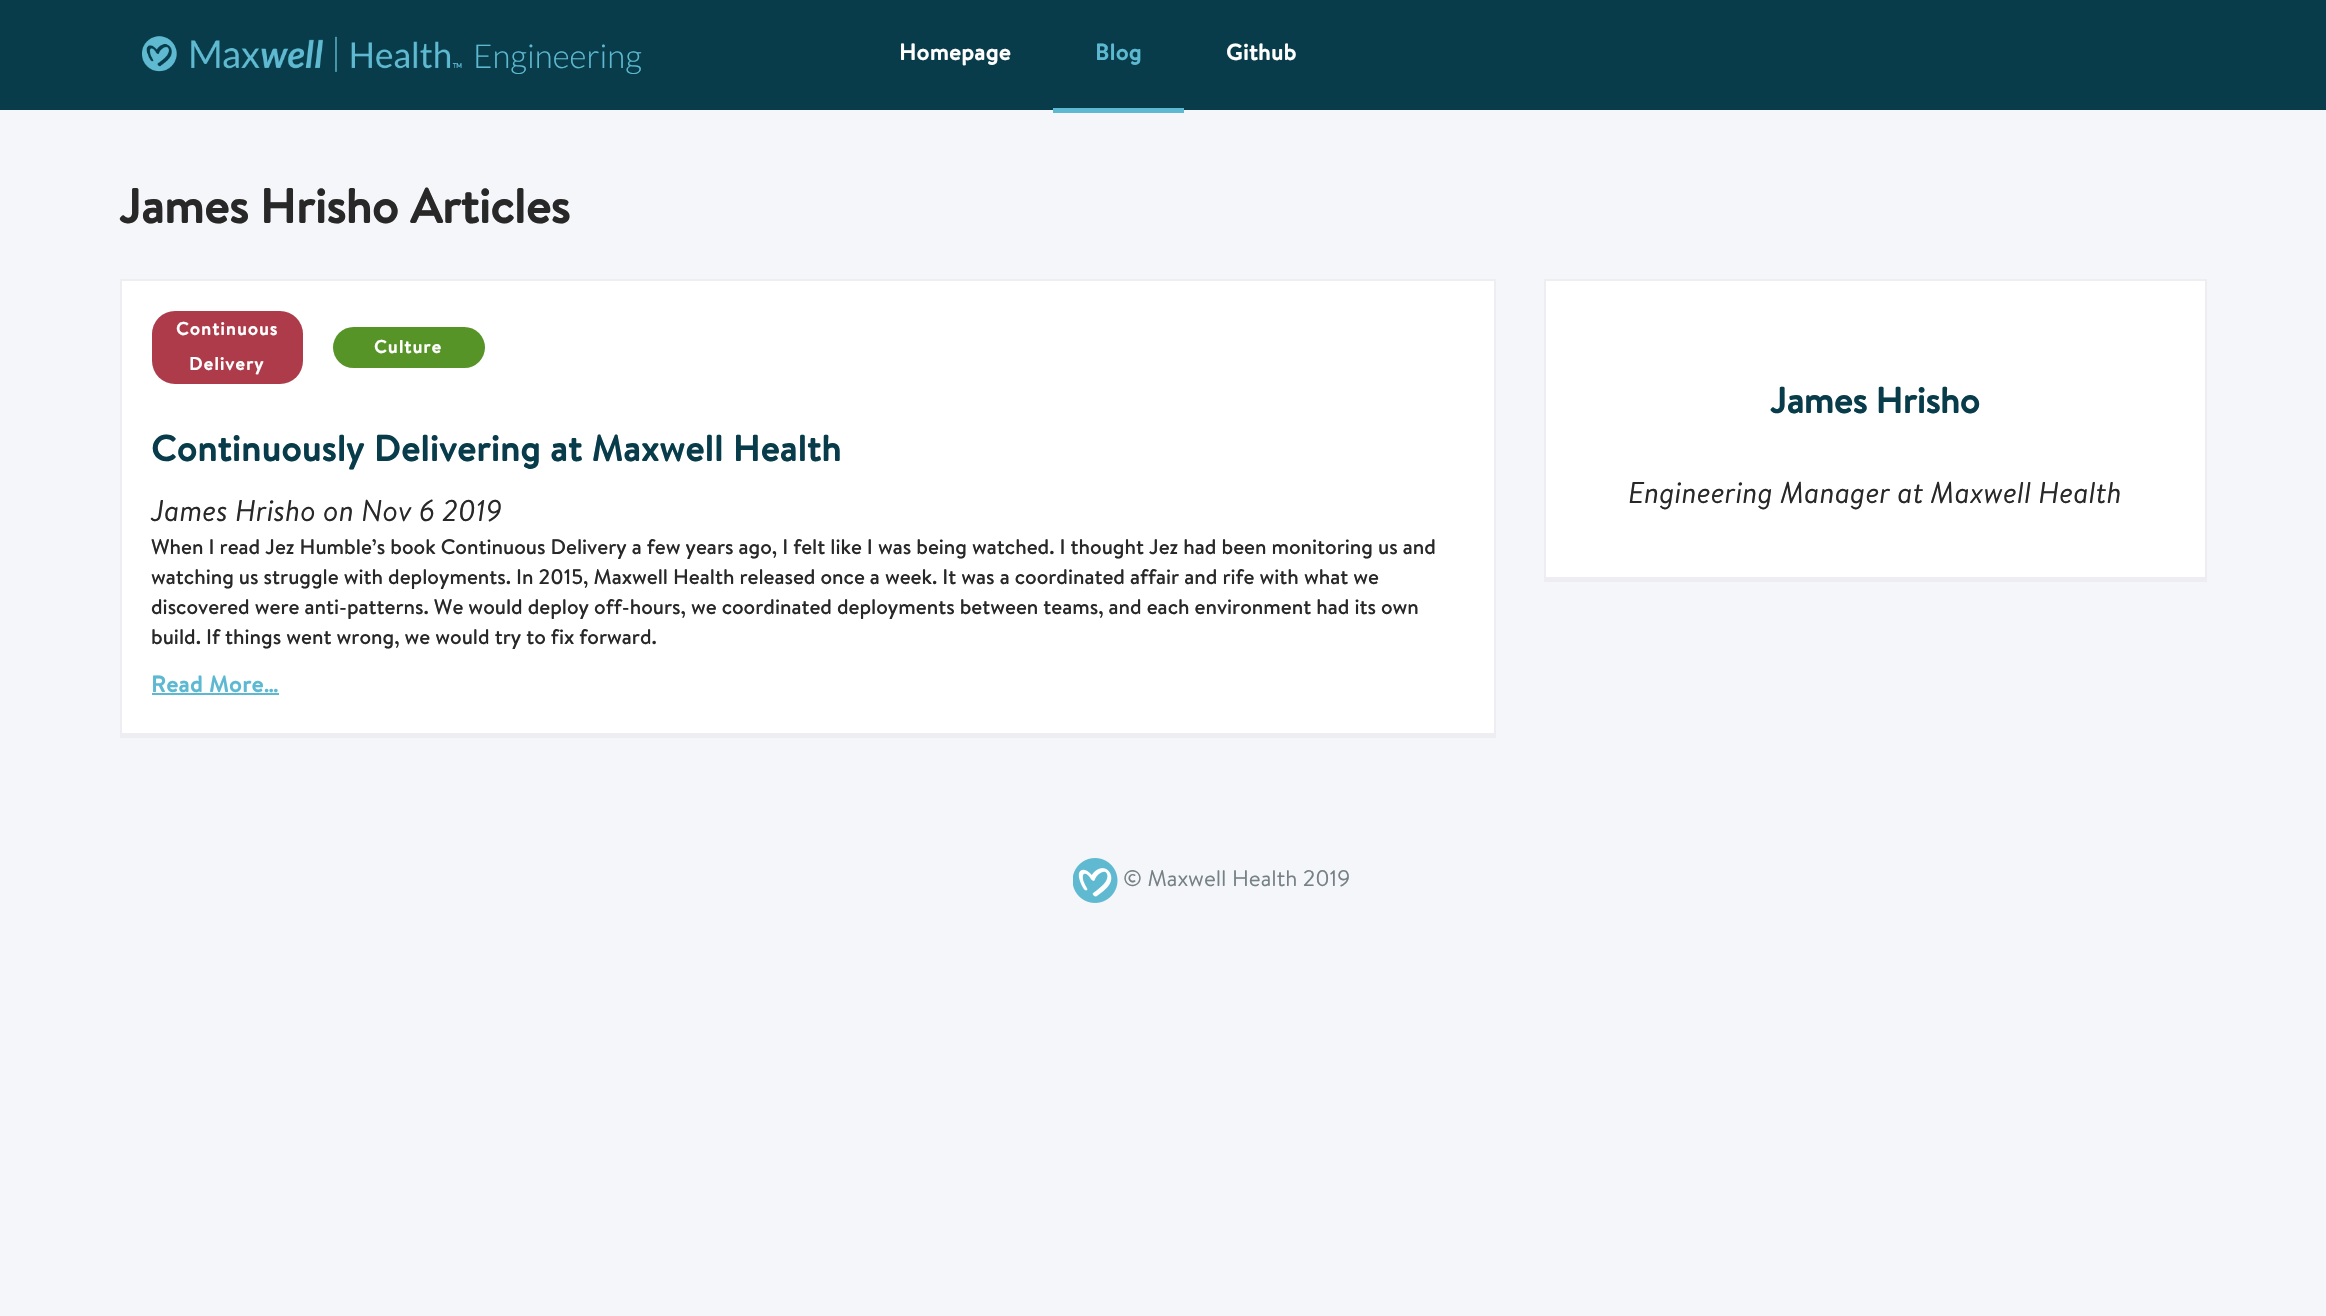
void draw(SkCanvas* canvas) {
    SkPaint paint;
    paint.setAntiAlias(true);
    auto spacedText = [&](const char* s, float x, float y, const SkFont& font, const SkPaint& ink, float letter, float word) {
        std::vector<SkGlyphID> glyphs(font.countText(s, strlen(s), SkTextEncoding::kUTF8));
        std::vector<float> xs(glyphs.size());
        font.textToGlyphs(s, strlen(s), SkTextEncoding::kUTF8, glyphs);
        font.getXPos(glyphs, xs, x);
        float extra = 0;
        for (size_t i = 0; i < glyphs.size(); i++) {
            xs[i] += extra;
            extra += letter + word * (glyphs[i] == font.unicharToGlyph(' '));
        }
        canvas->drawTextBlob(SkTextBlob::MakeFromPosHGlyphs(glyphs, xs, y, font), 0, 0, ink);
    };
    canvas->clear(0xFFF5F6F9);
    paint.setColor(0xFF083C4A);
    canvas->drawRect(SkRect::MakeXYWH(0, 0, 2326, 110), paint);
    canvas->drawImageRect(SkImages::DeferredFromEncodedData(SkData::MakeFromFileName("img1.png")), SkRect::MakeXYWH(142, 36, 320, 36), SkSamplingOptions());
    SkFont font1(fontMgr->matchFamilyStyle("Lato", SkFontStyle(300, SkFontStyle::kNormal_Width, SkFontStyle::kUpright_Slant)), 33);
    font1.setSubpixel(true);
    paint.setColor(0xFF5DB9D1);
    canvas->drawString("Engineering", 473, 68, font1, paint);
    SkFont font2(fontMgr->matchFamilyStyle("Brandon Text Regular", SkFontStyle::Bold()), 22.5f);
    font2.setSubpixel(true);
    paint.setColor(0xFFFFFFFF);
    spacedText("Homepage", 899, 60, font2, paint, 0.6f, 0);
    paint.setColor(0xFF5DB9D1);
    spacedText("Blog", 1095, 60, font2, paint, 0.6f, 0);
    canvas->drawRect(SkRect::MakeXYWH(1053, 108, 131, 5), paint);
    paint.setColor(0xFFFFFFFF);
    spacedText("Github", 1226, 60, font2, paint, 0.6f, 0);
    SkFont font3(fontMgr->matchFamilyStyle("Brandon Text Regular", SkFontStyle::Bold()), 48);
    font3.setSubpixel(true);
    paint.setColor(0xFF282828);
    canvas->drawString("James Hrisho Articles", 119, 223, font3, paint);
    paint.setColor(0xFFEEEDF1);
    canvas->drawPath(SkPathBuilder().moveTo(120, 735).lineTo(120, 738).lineTo(1496, 738).lineTo(1496, 282).lineTo(1496, 735).close().detach(), paint);
    paint.setColor(0xFFFFFFFF);
    canvas->drawRect(SkRect::MakeXYWH(121, 280, 1374, 454), paint);
    paint.setStyle(SkPaint::kStroke_Style);
    paint.setStrokeWidth(2);
    paint.setColor(0xFFEEEDF1);
    canvas->drawRect(SkRect::MakeXYWH(121, 280, 1374, 454), paint);
    paint.setStyle(SkPaint::kFill_Style);
    paint.setColor(0xFFAD3B4A);
    canvas->drawRoundRect(SkRect::MakeXYWH(152, 311, 151, 73), 23, 23, paint);
    SkFont font4(fontMgr->matchFamilyStyle("Brandon Text Regular", SkFontStyle::Bold()), 18);
    font4.setSubpixel(true);
    paint.setColor(0xFFFFFFFF);
    spacedText("Continuous", 176, 335, font4, paint, 1.25f, 0);
    spacedText("Delivery", 189, 370, font4, paint, 1.25f, 0);
    paint.setColor(0xFF579427);
    canvas->drawRoundRect(SkRect::MakeXYWH(333, 327, 152, 41), 20.5f, 20.5f, paint);
    paint.setColor(0xFFFFFFFF);
    spacedText("Culture", 374, 353, font4, paint, 1.25f, 0);
    SkFont font5(fontMgr->matchFamilyStyle("Brandon Text Regular", SkFontStyle::Bold()), 36);
    font5.setSubpixel(true);
    paint.setColor(0xFF083C4A);
    spacedText("Continuously Delivering at Maxwell Health", 151, 461, font5, paint, 0.6f, 0);
    SkFont font6(fontMgr->matchFamilyStyle("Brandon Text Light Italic", SkFontStyle::Normal()), 30);
    font6.setSubpixel(true);
    paint.setColor(0xFF282828);
    canvas->drawString("James Hrisho on Nov 6 2019", 151, 521, font6, paint);
    SkFont font7(fontMgr->matchFamilyStyle("Brandon Text Regular", SkFontStyle::Normal()), 21);
    font7.setSubpixel(true);
    canvas->drawString("When I read Jez Humble’s book Continuous Delivery a few years ago, I felt like I was being watched. I thought Jez had been monitoring us and", 151, 554, font7, paint);
    canvas->drawString("watching us struggle with deployments. In 2015, Maxwell Health released once a week. It was a coordinated affair and rife with what we", 151, 584, font7, paint);
    canvas->drawString("discovered were anti-patterns. We would deploy off-hours, we coordinated deployments between teams, and each environment had its own", 151, 614, font7, paint);
    canvas->drawString("build. If things went wrong, we would try to fix forward.", 151, 644, font7, paint);
    paint.setColor(0xFF5DB9D1);
    spacedText("Read More…", 151, 692, font2, paint, 0.6f, 0);
    canvas->drawRect(SkRect::MakeXYWH(152, 693, 127, 2), paint);
    paint.setColor(0xFFEEEDF1);
    canvas->drawPath(SkPathBuilder().moveTo(1544, 579).lineTo(1544, 582).lineTo(2207, 582).lineTo(2207, 282).lineTo(2206, 282).lineTo(2206, 579).close().detach(), paint);
    paint.setColor(0xFFFFFFFF);
    canvas->drawRect(SkRect::MakeXYWH(1545, 280, 661, 298), paint);
    paint.setStyle(SkPaint::kStroke_Style);
    paint.setColor(0xFFEEEDF1);
    canvas->drawRect(SkRect::MakeXYWH(1545, 280, 661, 298), paint);
    paint.setStyle(SkPaint::kFill_Style);
    paint.setColor(0xFF083C4A);
    canvas->drawString("James Hrisho", 1770, 413, font5, paint);
    paint.setColor(0xFF282828);
    canvas->drawString("Engineering Manager at Maxwell Health", 1628, 503, font6, paint);
    canvas->drawImageRect(SkImages::DeferredFromEncodedData(SkData::MakeFromFileName("img2.png")), SkRect::MakeXYWH(1073, 858, 45, 45), SkSamplingOptions());
    SkFont font8(fontMgr->matchFamilyStyle("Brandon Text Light", SkFontStyle::Normal()), 22.5f);
    font8.setSubpixel(true);
    paint.setColor(0xFF758185);
    canvas->drawString("© Maxwell Health 2019", 1123, 886, font8, paint);
}
